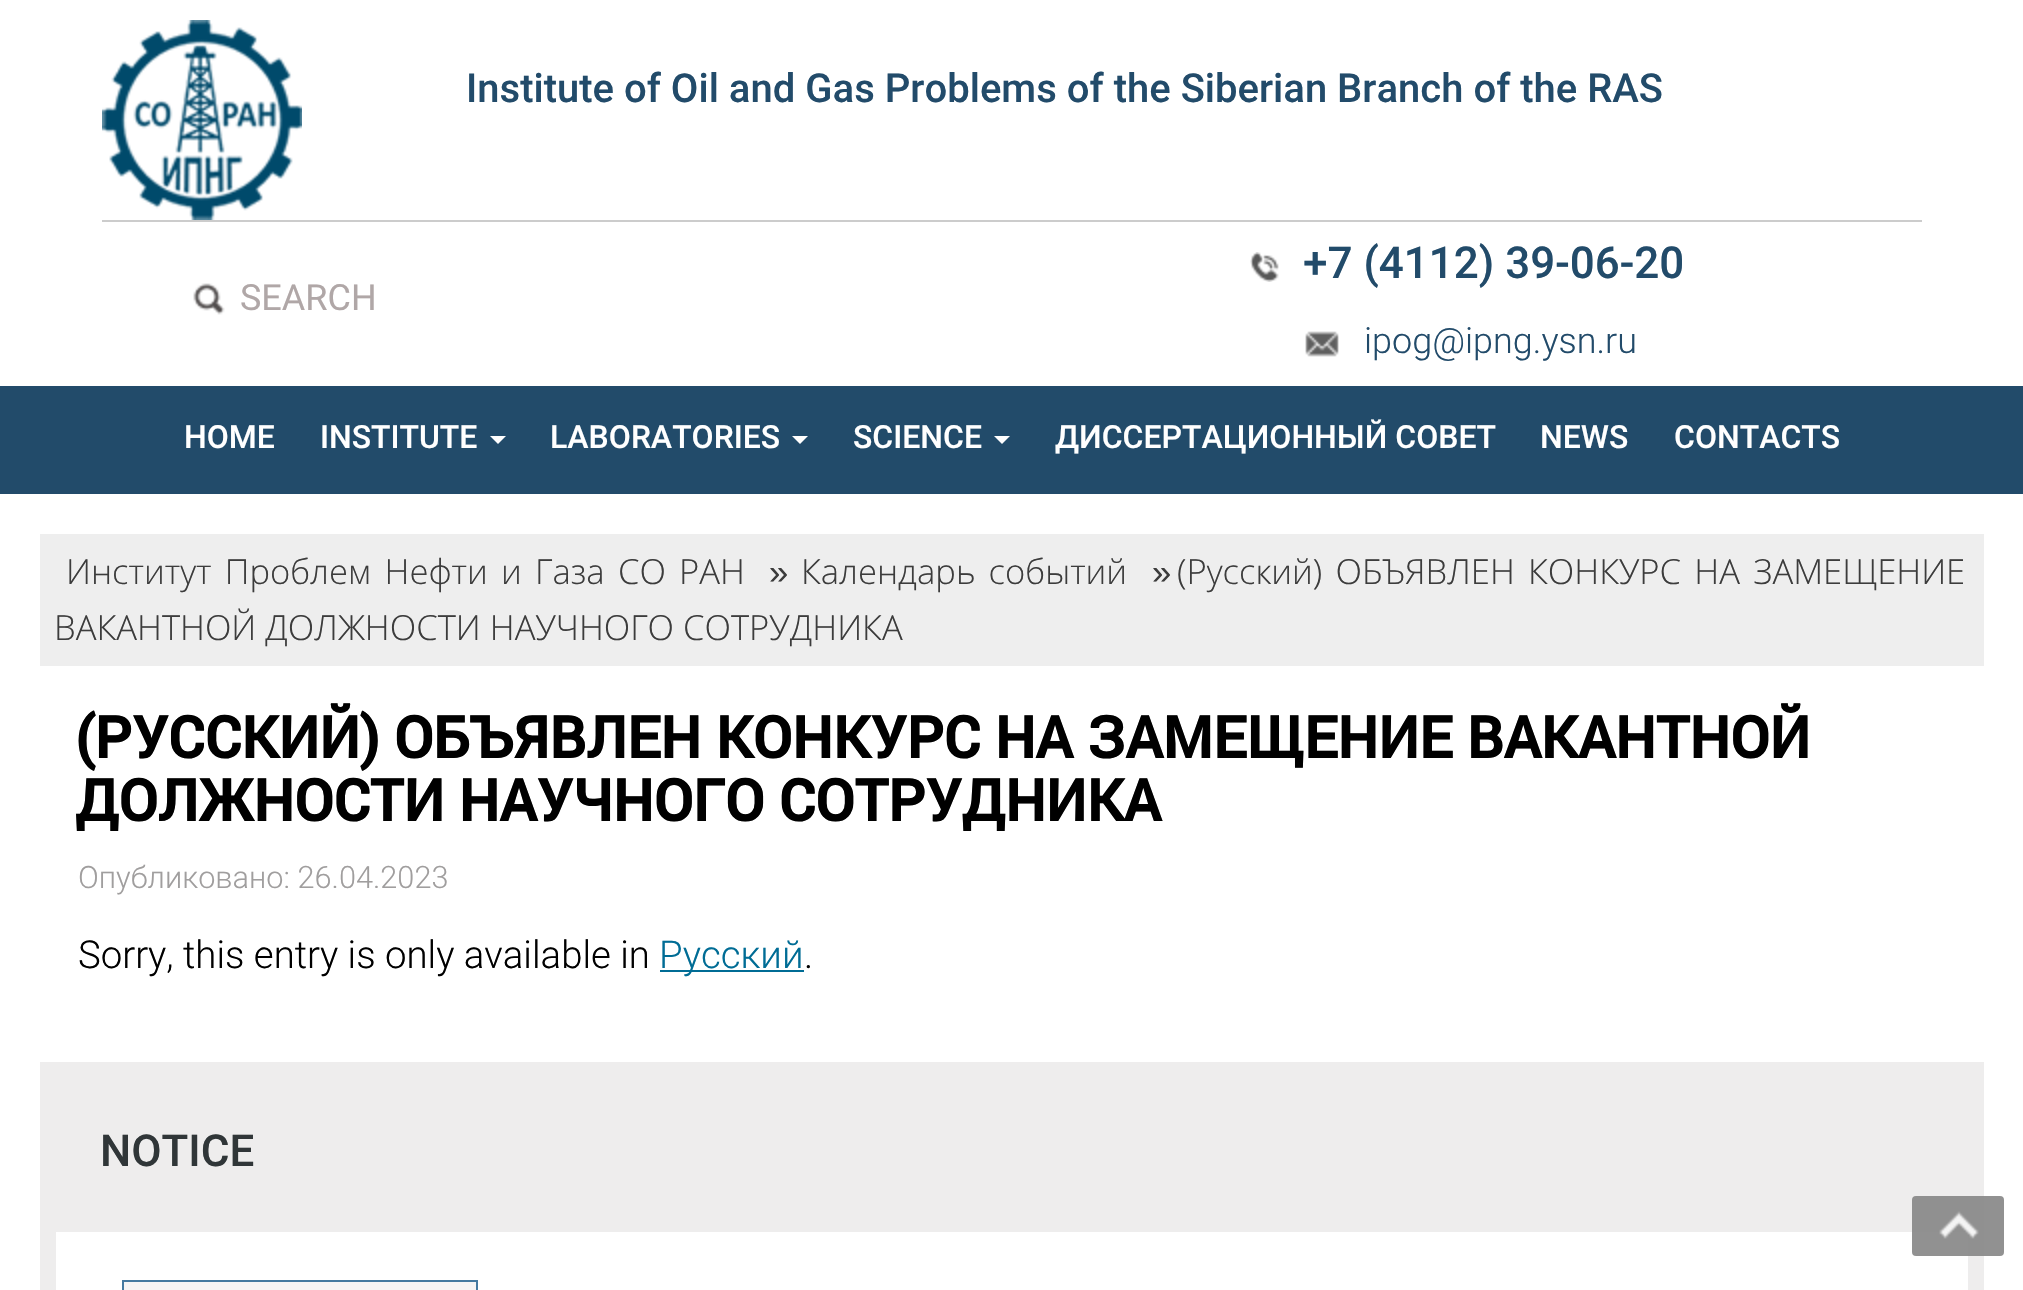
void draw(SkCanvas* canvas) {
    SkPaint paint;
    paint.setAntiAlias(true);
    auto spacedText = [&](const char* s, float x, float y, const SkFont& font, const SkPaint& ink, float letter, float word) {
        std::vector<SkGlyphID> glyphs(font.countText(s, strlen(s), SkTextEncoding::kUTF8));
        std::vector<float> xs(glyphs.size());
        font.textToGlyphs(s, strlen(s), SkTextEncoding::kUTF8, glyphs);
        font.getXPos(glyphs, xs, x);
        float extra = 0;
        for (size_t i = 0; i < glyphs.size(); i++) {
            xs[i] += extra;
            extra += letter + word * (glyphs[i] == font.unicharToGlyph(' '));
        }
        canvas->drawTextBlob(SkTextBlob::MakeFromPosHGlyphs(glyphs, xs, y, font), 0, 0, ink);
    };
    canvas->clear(0xFFFFFFFF);
    paint.setColor(0xFFCCCCCC);
    canvas->drawRect(SkRect::MakeXYWH(102, 220, 1820, 2), paint);
    canvas->drawImageRect(SkImages::DeferredFromEncodedData(SkData::MakeFromFileName("img1.png")), SkRect::MakeXYWH(102, 20, 200, 200), SkSamplingOptions());
    SkFont font1(fontMgr->matchFamilyStyle("Roboto", SkFontStyle(500, SkFontStyle::kNormal_Width, SkFontStyle::kUpright_Slant)), 40);
    font1.setSubpixel(true);
    paint.setColor(0xFF224B6A);
    canvas->drawString("Institute of Oil and Gas Problems of the Siberian Branch of the RAS", 466, 102, font1, paint);
    canvas->drawImageRect(SkImages::DeferredFromEncodedData(SkData::MakeFromFileName("img2.png")), SkRect::MakeXYWH(193, 283, 32, 32), SkSamplingOptions());
    SkFont font2(fontMgr->matchFamilyStyle("Roboto", SkFontStyle::Normal()), 36);
    font2.setSubpixel(true);
    paint.setColor(0xFFB0A7A7);
    canvas->drawString("SEARCH", 240, 310, font2, paint);
    canvas->drawImageRect(SkImages::DeferredFromEncodedData(SkData::MakeFromFileName("img3.png")), SkRect::MakeXYWH(1250, 252, 29, 30), SkSamplingOptions());
    SkFont font3(fontMgr->matchFamilyStyle("Roboto", SkFontStyle(500, SkFontStyle::kNormal_Width, SkFontStyle::kUpright_Slant)), 44);
    font3.setSubpixel(true);
    paint.setColor(0xFF224B6A);
    canvas->drawString("+7 (4112) 39-06-20", 1303, 278, font3, paint);
    canvas->drawImageRect(SkImages::DeferredFromEncodedData(SkData::MakeFromFileName("img4.png")), SkRect::MakeXYWH(1305, 331, 34, 26), SkSamplingOptions());
    SkFont font4(fontMgr->matchFamilyStyle("Roboto", SkFontStyle(300, SkFontStyle::kNormal_Width, SkFontStyle::kUpright_Slant)), 36);
    font4.setSubpixel(true);
    canvas->drawString("ipog@ipng.ysn.ru", 1364, 353, font4, paint);
    canvas->drawRect(SkRect::MakeXYWH(0, 386, 2023, 108), paint);
    SkFont font5(fontMgr->matchFamilyStyle("Roboto", SkFontStyle(500, SkFontStyle::kNormal_Width, SkFontStyle::kUpright_Slant)), 32);
    font5.setSubpixel(true);
    paint.setColor(0xFFFFFFFF);
    canvas->drawString("HOME", 184, 448, font5, paint);
    canvas->drawString("INSTITUTE", 320, 448, font5, paint);
    canvas->drawPath(SkPathBuilder().moveTo(490, 436).lineTo(506, 436).lineTo(498, 444).close().detach(), paint);
    canvas->drawString("LABORATORIES", 550, 448, font5, paint);
    canvas->drawPath(SkPathBuilder().moveTo(792, 436).lineTo(808, 436).lineTo(800, 444).close().detach(), paint);
    canvas->drawString("SCIENCE", 853, 448, font5, paint);
    canvas->drawPath(SkPathBuilder().moveTo(994, 436).lineTo(1010, 436).lineTo(1002, 444).close().detach(), paint);
    canvas->drawString("ДИССЕРТАЦИОННЫЙ СОВЕТ", 1055, 448, font5, paint);
    canvas->drawString("NEWS", 1540, 448, font5, paint);
    canvas->drawString("CONTACTS", 1674, 448, font5, paint);
    paint.setColor(0xFFEEEEEE);
    canvas->drawRect(SkRect::MakeXYWH(40, 534, 1944, 132), paint);
    SkFont font6(fontMgr->matchFamilyStyle("Open Sans", SkFontStyle(300, SkFontStyle::kNormal_Width, SkFontStyle::kUpright_Slant)), 34.6f);
    font6.setSubpixel(true);
    paint.setColor(0xFF3C3C3C);
    spacedText("Институт Проблем Нефти и Газа СО РАН", 66, 584, font6, paint, 0, 4.25f);
    SkFont font7(fontMgr->matchFamilyStyle("Liberation Sans", SkFontStyle::Normal()), 34.6f);
    font7.setSubpixel(true);
    canvas->drawString("»", 769, 584, font7, paint);
    spacedText("Календарь событий", 801, 584, font6, paint, 0, 4);
    canvas->drawString("»", 1152, 584, font7, paint);
    spacedText("(Русский) ОБЪЯВЛЕН КОНКУРС НА ЗАМЕЩЕНИЕ", 1177, 584, font6, paint, 0, 4.25f);
    canvas->drawString("ВАКАНТНОЙ ДОЛЖНОСТИ НАУЧНОГО СОТРУДНИКА", 54, 640, font6, paint);
    SkFont font8(fontMgr->matchFamilyStyle("Roboto", SkFontStyle::Bold()), 57.6f);
    font8.setSubpixel(true);
    paint.setColor(0xFF000000);
    canvas->drawString("(РУССКИЙ) ОБЪЯВЛЕН КОНКУРС НА ЗАМЕЩЕНИЕ ВАКАНТНОЙ", 75, 758, font8, paint);
    canvas->drawString("ДОЛЖНОСТИ НАУЧНОГО СОТРУДНИКА", 75, 821, font8, paint);
    SkFont font9(fontMgr->matchFamilyStyle("Roboto", SkFontStyle(300, SkFontStyle::kNormal_Width, SkFontStyle::kUpright_Slant)), 30.75f);
    font9.setSubpixel(true);
    paint.setColor(0xFFA09E9E);
    canvas->drawString("Опубликовано: 26.04.2023", 78, 888, font9, paint);
    SkFont font10(fontMgr->matchFamilyStyle("Roboto", SkFontStyle(300, SkFontStyle::kNormal_Width, SkFontStyle::kUpright_Slant)), 38.4f);
    font10.setSubpixel(true);
    paint.setColor(0xFF000000);
    canvas->drawString("Sorry, this entry is only available in", 78, 968, font10, paint);
    paint.setColor(0xFF006C95);
    canvas->drawRect(SkRect::MakeXYWH(660, 970, 144, 2), paint);
    canvas->drawString("Русский", 659, 968, font10, paint);
    paint.setColor(0xFF000000);
    canvas->drawString(".", 804, 968, font10, paint);
    paint.setColor(0xFFEEEDED);
    canvas->drawRect(SkRect::MakeXYWH(40, 1062, 1944, 228), paint);
    paint.setColor(0xFF303638);
    canvas->drawString("NOTICE", 100, 1166, font3, paint);
    paint.setColor(0xFFFFFFFF);
    canvas->drawRect(SkRect::MakeXYWH(56, 1232, 1912, 58), paint);
    paint.setColor(0xFFF6F4F4);
    canvas->drawRect(SkRect::MakeXYWH(123, 1281, 354, 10), paint);
    paint.setStyle(SkPaint::kStroke_Style);
    paint.setStrokeWidth(2);
    paint.setColor(0xFF4579A0);
    canvas->drawRect(SkRect::MakeXYWH(123, 1281, 354, 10), paint);
    paint.setStyle(SkPaint::kFill_Style);
    paint.setColor(0xE6858585);
    canvas->drawRoundRect(SkRect::MakeXYWH(1912, 1196, 92, 60), 4, 4, paint);
    canvas->drawImageRect(SkImages::DeferredFromEncodedData(SkData::MakeFromFileName("img5.png")), SkRect::MakeXYWH(1939, 1211, 40, 28), SkSamplingOptions());
}
